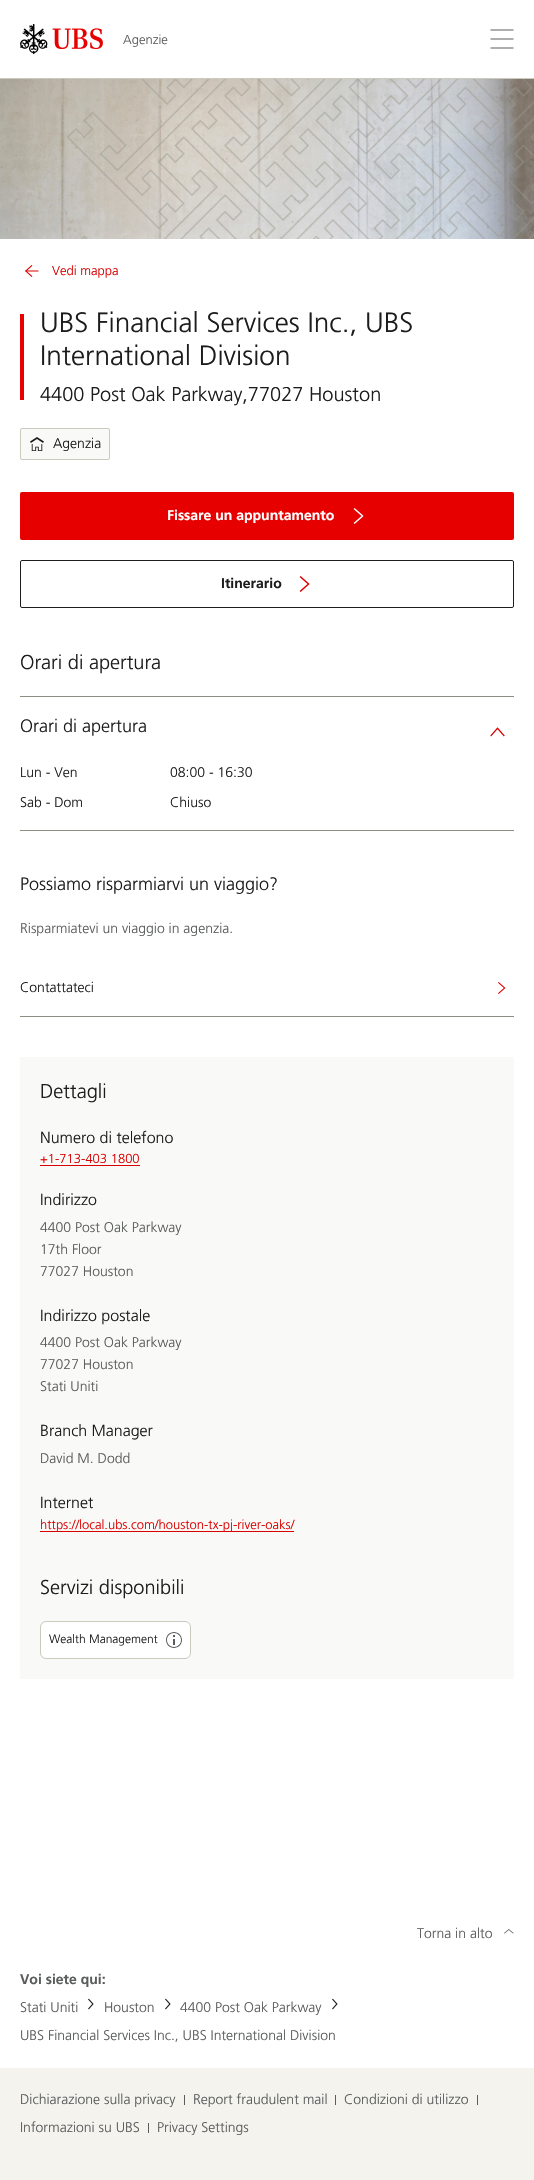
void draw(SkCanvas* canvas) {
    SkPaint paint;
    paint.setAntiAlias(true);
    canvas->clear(0xFFFFFFFF);
    paint.setColor(0xFFCCCABC);
    canvas->drawRect(SkRect::MakeXYWH(0, 78, 534, 1), paint);
    canvas->drawImageRect(SkImages::DeferredFromEncodedData(SkData::MakeFromFileName("img1.png")), SkRect::MakeXYWH(20, 24, 83, 30), SkSamplingOptions());
    SkFont font1(fontMgr->matchFamilyStyle("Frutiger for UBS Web", SkFontStyle(300, SkFontStyle::kNormal_Width, SkFontStyle::kUpright_Slant)), 13);
    font1.setSubpixel(true);
    paint.setColor(0xFF5A5D5C);
    canvas->drawString("Agenzie", 123, 44, font1, paint);
    canvas->drawImageRect(SkImages::DeferredFromEncodedData(SkData::MakeFromFileName("img2.png")), SkRect::MakeXYWH(490, 29, 24, 20), SkSamplingOptions());
    canvas->drawImageRect(SkImages::DeferredFromEncodedData(SkData::MakeFromFileName("img3.png")), SkRect::MakeXYWH(0, 79, 534, 160), SkSamplingOptions());
    canvas->drawImageRect(SkImages::DeferredFromEncodedData(SkData::MakeFromFileName("img4.png")), SkRect::MakeXYWH(25, 265, 14, 12), SkSamplingOptions());
    paint.setColor(0xFFDA0000);
    canvas->drawString("Vedi mappa", 52, 275, font1, paint);
    paint.setColor(0xFFE60000);
    canvas->drawRect(SkRect::MakeXYWH(20, 314, 4, 86), paint);
    SkFont font2(fontMgr->matchFamilyStyle("Frutiger for UBS Web", SkFontStyle(300, SkFontStyle::kNormal_Width, SkFontStyle::kUpright_Slant)), 28);
    font2.setSubpixel(true);
    paint.setColor(0xFF1C1C1C);
    canvas->drawString("UBS Financial Services Inc., UBS", 40, 332, font2, paint);
    canvas->drawString("International Division", 40, 365, font2, paint);
    SkFont font3(fontMgr->matchFamilyStyle("Frutiger for UBS Web", SkFontStyle(300, SkFontStyle::kNormal_Width, SkFontStyle::kUpright_Slant)), 20);
    font3.setSubpixel(true);
    canvas->drawString("4400 Post Oak Parkway,77027 Houston", 40, 401, font3, paint);
    paint.setColor(0xFFF9F9F7);
    canvas->drawRoundRect(SkRect::MakeXYWH(20.5f, 428.5f, 89, 31), 1.5f, 1.5f, paint);
    paint.setStyle(SkPaint::kStroke_Style);
    paint.setStrokeWidth(1);
    paint.setColor(0xFFCCCABC);
    canvas->drawRoundRect(SkRect::MakeXYWH(20.5f, 428.5f, 89, 31), 1.5f, 1.5f, paint);
    canvas->drawImageRect(SkImages::DeferredFromEncodedData(SkData::MakeFromFileName("img5.png")), SkRect::MakeXYWH(30, 437, 14, 14), SkSamplingOptions());
    SkFont font4(fontMgr->matchFamilyStyle("Frutiger for UBS Web", SkFontStyle(300, SkFontStyle::kNormal_Width, SkFontStyle::kUpright_Slant)), 14);
    font4.setSubpixel(true);
    paint.setStyle(SkPaint::kFill_Style);
    paint.setColor(0xFF1C1C1C);
    canvas->drawString("Agenzia", 53, 448, font4, paint);
    paint.setColor(0xFFE60000);
    canvas->drawRoundRect(SkRect::MakeXYWH(20, 492, 494, 48), 2, 2, paint);
    SkFont font5(fontMgr->matchFamilyStyle("Frutiger for UBS Web", SkFontStyle(500, SkFontStyle::kNormal_Width, SkFontStyle::kUpright_Slant)), 14);
    font5.setSubpixel(true);
    paint.setColor(0xFFFFFFFF);
    canvas->drawString("Fissare un appuntamento", 167, 520, font5, paint);
    canvas->drawImageRect(SkImages::DeferredFromEncodedData(SkData::MakeFromFileName("img6.png")), SkRect::MakeXYWH(353, 508, 11, 16), SkSamplingOptions());
    paint.setStyle(SkPaint::kStroke_Style);
    paint.setColor(0xFF1C1C1C);
    canvas->drawRoundRect(SkRect::MakeXYWH(20.5f, 560.5f, 493, 47), 1.5f, 1.5f, paint);
    paint.setStyle(SkPaint::kFill_Style);
    canvas->drawString("Itinerario", 221, 588, font5, paint);
    canvas->drawImageRect(SkImages::DeferredFromEncodedData(SkData::MakeFromFileName("img7.png")), SkRect::MakeXYWH(299, 576, 11, 16), SkSamplingOptions());
    canvas->drawString("Orari di apertura", 20, 669, font3, paint);
    paint.setColor(0xFF8E8D83);
    canvas->drawRect(SkRect::MakeXYWH(20, 696, 494, 1), paint);
    canvas->drawRect(SkRect::MakeXYWH(20, 830, 494, 1), paint);
    SkFont font6(fontMgr->matchFamilyStyle("Frutiger for UBS Web", SkFontStyle(300, SkFontStyle::kNormal_Width, SkFontStyle::kUpright_Slant)), 18);
    font6.setSubpixel(true);
    paint.setColor(0xFF1C1C1C);
    canvas->drawString("Orari di apertura", 20, 732, font6, paint);
    canvas->drawImageRect(SkImages::DeferredFromEncodedData(SkData::MakeFromFileName("img8.png")), SkRect::MakeXYWH(490, 727, 15, 10), SkSamplingOptions());
    canvas->drawString("Lun - Ven", 20, 777, font4, paint);
    canvas->drawString("08:00 - 16:30", 170, 777, font4, paint);
    canvas->drawString("Sab - Dom", 20, 807, font4, paint);
    canvas->drawString("Chiuso", 170, 807, font4, paint);
    canvas->drawString("Possiamo risparmiarvi un viaggio?", 20, 890, font6, paint);
    paint.setColor(0xFF5A5D5C);
    canvas->drawString("Risparmiatevi un viaggio in agenzia.", 20, 933, font4, paint);
    paint.setColor(0xFF8E8D83);
    canvas->drawRect(SkRect::MakeXYWH(20, 1016, 494, 1), paint);
    paint.setColor(0xFF1C1C1C);
    canvas->drawString("Contattateci", 20, 992, font4, paint);
    canvas->drawImageRect(SkImages::DeferredFromEncodedData(SkData::MakeFromFileName("img9.png")), SkRect::MakeXYWH(498, 982, 8, 12), SkSamplingOptions());
    paint.setColor(0xFFF9F9F7);
    canvas->drawRect(SkRect::MakeXYWH(20, 1057, 494, 622), paint);
    paint.setColor(0xFF1C1C1C);
    canvas->drawString("Dettagli", 40, 1098, font3, paint);
    SkFont font7(fontMgr->matchFamilyStyle("Frutiger for UBS Web", SkFontStyle(300, SkFontStyle::kNormal_Width, SkFontStyle::kUpright_Slant)), 16);
    font7.setSubpixel(true);
    canvas->drawString("Numero di telefono", 40, 1143, font7, paint);
    paint.setColor(0xFFDA0000);
    canvas->drawString("+1-713-403 1800", 40, 1163, font1, paint);
    canvas->drawRect(SkRect::MakeXYWH(40, 1165, 100, 1), paint);
    paint.setColor(0xFF1C1C1C);
    canvas->drawString("Indirizzo", 40, 1205, font7, paint);
    paint.setColor(0xFF5A5D5C);
    canvas->drawString("4400 Post Oak Parkway", 40, 1232, font4, paint);
    canvas->drawString("17th Floor", 40, 1254, font4, paint);
    canvas->drawString("77027 Houston", 40, 1276, font4, paint);
    paint.setColor(0xFF1C1C1C);
    canvas->drawString("Indirizzo postale", 40, 1321, font7, paint);
    paint.setColor(0xFF5A5D5C);
    canvas->drawString("4400 Post Oak Parkway", 40, 1347, font4, paint);
    canvas->drawString("77027 Houston", 40, 1369, font4, paint);
    canvas->drawString("Stati Uniti", 40, 1391, font4, paint);
    paint.setColor(0xFF1C1C1C);
    canvas->drawString("Branch Manager", 40, 1436, font7, paint);
    paint.setColor(0xFF5A5D5C);
    canvas->drawString("David M. Dodd", 40, 1463, font4, paint);
    paint.setColor(0xFF1C1C1C);
    canvas->drawString("Internet", 40, 1508, font7, paint);
    paint.setColor(0xFFDA0000);
    canvas->drawRect(SkRect::MakeXYWH(40, 1531, 254, 1), paint);
    canvas->drawString("https://local.ubs.com/houston-tx-pj-river-oaks/", 40, 1529, font1, paint);
    paint.setColor(0xFF1C1C1C);
    canvas->drawString("Servizi disponibili", 40, 1594, font3, paint);
    paint.setColor(0xFFFFFFFF);
    canvas->drawRoundRect(SkRect::MakeXYWH(40.5f, 1621.5f, 150, 37), 5.5f, 5.5f, paint);
    paint.setStyle(SkPaint::kStroke_Style);
    paint.setColor(0xFFCCCABC);
    canvas->drawRoundRect(SkRect::MakeXYWH(40.5f, 1621.5f, 150, 37), 5.5f, 5.5f, paint);
    SkFont font8(fontMgr->matchFamilyStyle("Frutiger for UBS Web", SkFontStyle(300, SkFontStyle::kNormal_Width, SkFontStyle::kUpright_Slant)), 12);
    font8.setSubpixel(true);
    paint.setStyle(SkPaint::kFill_Style);
    paint.setColor(0xFF1C1C1C);
    canvas->drawString("Wealth Management", 49, 1643, font8, paint);
    canvas->drawImageRect(SkImages::DeferredFromEncodedData(SkData::MakeFromFileName("img10.png")), SkRect::MakeXYWH(166, 1632, 16, 16), SkSamplingOptions());
    paint.setColor(0xFF5A5D5C);
    canvas->drawString("Torna in alto", 417, 1938, font4, paint);
    canvas->drawImageRect(SkImages::DeferredFromEncodedData(SkData::MakeFromFileName("img11.png")), SkRect::MakeXYWH(504, 1929, 10, 5), SkSamplingOptions());
    canvas->drawString("Voi siete qui:", 20, 1984, font5, paint);
    canvas->drawString("Stati Uniti", 20, 2012, font4, paint);
    canvas->drawImageRect(SkImages::DeferredFromEncodedData(SkData::MakeFromFileName("img12.png")), SkRect::MakeXYWH(88, 1998, 6, 12), SkSamplingOptions());
    canvas->drawString("Houston", 104, 2012, font4, paint);
    canvas->drawImageRect(SkImages::DeferredFromEncodedData(SkData::MakeFromFileName("img12.png")), SkRect::MakeXYWH(165, 1998, 6, 12), SkSamplingOptions());
    canvas->drawString("4400 Post Oak Parkway", 180, 2012, font4, paint);
    canvas->drawImageRect(SkImages::DeferredFromEncodedData(SkData::MakeFromFileName("img12.png")), SkRect::MakeXYWH(332, 1998, 6, 12), SkSamplingOptions());
    canvas->drawString("UBS Financial Services Inc., UBS International Division", 20, 2040, font4, paint);
    paint.setColor(0xFFF4F3EE);
    canvas->drawRect(SkRect::MakeXYWH(0, 2068, 534, 112), paint);
    paint.setColor(0xFF5A5D5C);
    canvas->drawString("Dichiarazione sulla privacy", 20, 2104, font4, paint);
    canvas->drawRect(SkRect::MakeXYWH(184, 2095, 1, 10), paint);
    canvas->drawString("Report fraudulent mail", 193, 2104, font4, paint);
    canvas->drawRect(SkRect::MakeXYWH(335, 2095, 1, 10), paint);
    canvas->drawString("Condizioni di utilizzo", 344, 2104, font4, paint);
    canvas->drawRect(SkRect::MakeXYWH(477, 2095, 1, 10), paint);
    canvas->drawString("Informazioni su UBS", 20, 2132, font4, paint);
    canvas->drawRect(SkRect::MakeXYWH(148, 2123, 1, 10), paint);
    canvas->drawString("Privacy Settings", 157, 2132, font4, paint);
}
